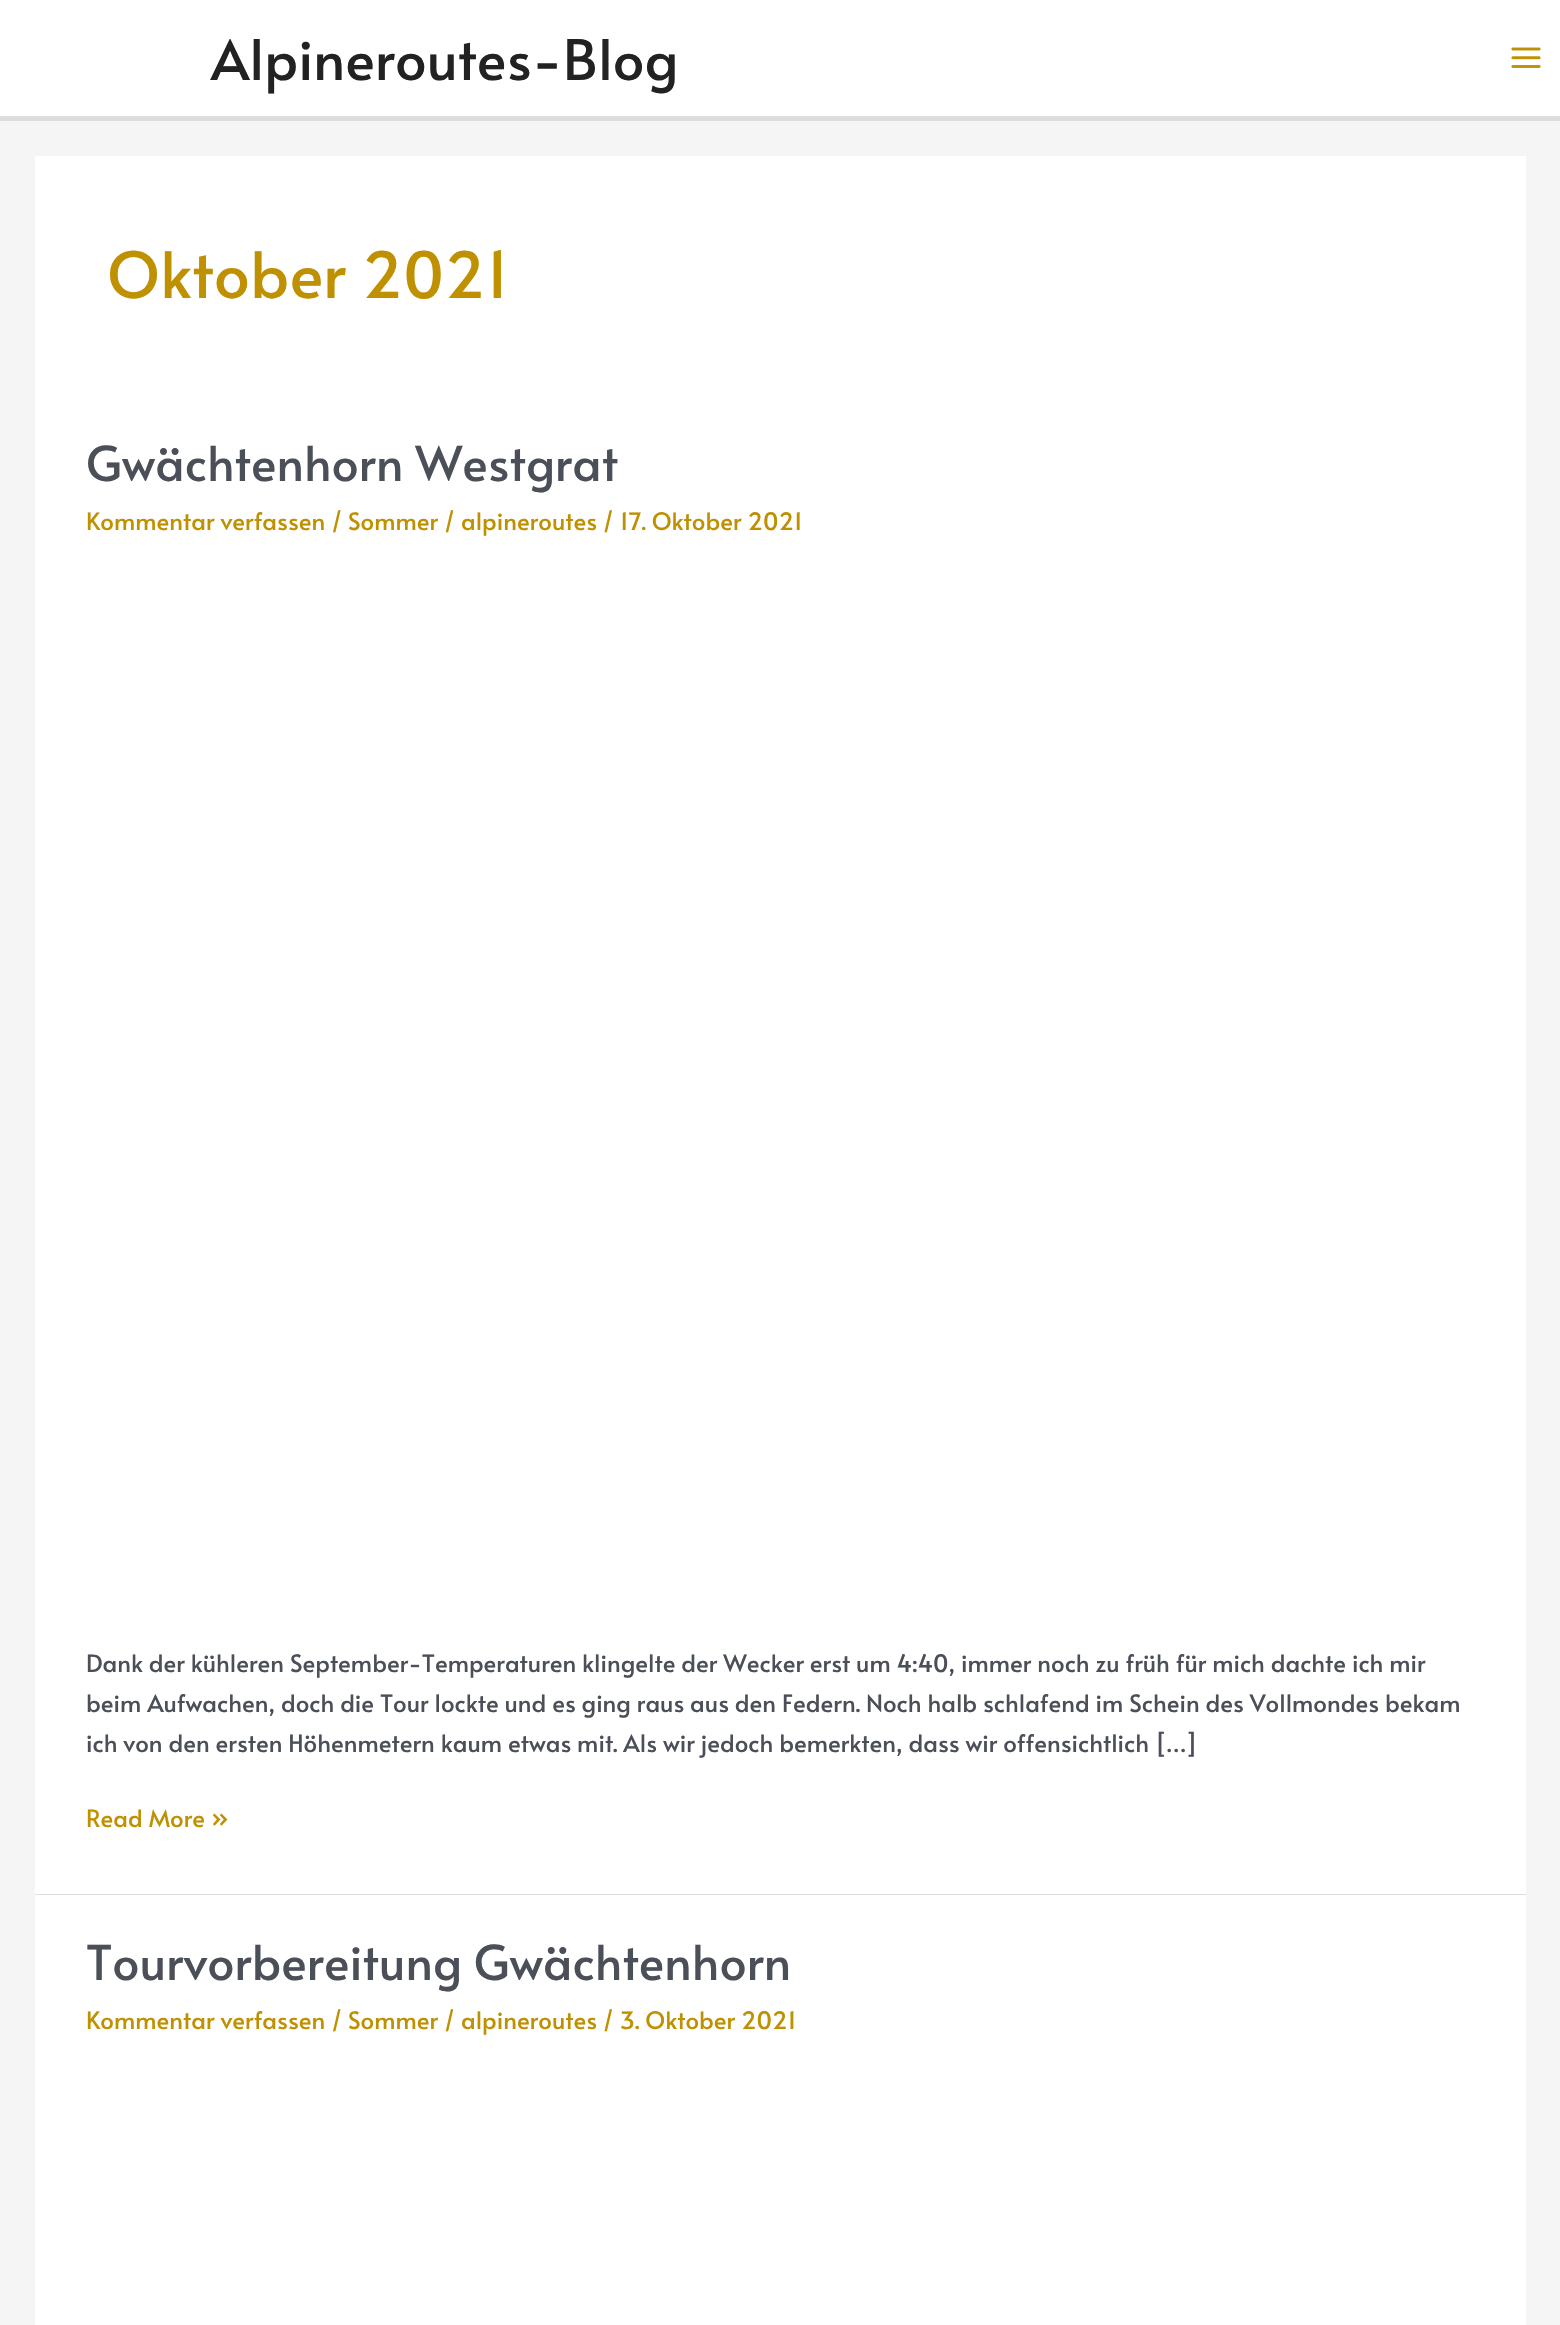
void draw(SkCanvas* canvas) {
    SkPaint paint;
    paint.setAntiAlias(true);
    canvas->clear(0xFFF5F5F5);
    paint.setColor(0xFFFFFFFF);
    canvas->drawRect(SkRect::MakeXYWH(0, 0, 1560, 116), paint);
    paint.setColor(0xFFDDDDDD);
    canvas->drawRect(SkRect::MakeXYWH(0, 116, 1560, 5), paint);
    SkFont font1(fontMgr->matchFamilyStyle("Alata", SkFontStyle::Normal()), 55.75f);
    font1.setSubpixel(true);
    paint.setColor(0xFF222222);
    canvas->drawString("Alpineroutes-Blog", 211, 80, font1, paint);
    canvas->drawImageRect(SkImages::DeferredFromEncodedData(SkData::MakeFromFileName("img1.png")), SkRect::MakeXYWH(1511, 47, 30, 21), SkSamplingOptions());
    paint.setColor(0xFFFFFFFF);
    canvas->drawRect(SkRect::MakeXYWH(35, 156, 1491, 1738), paint);
    SkFont font2(fontMgr->matchFamilyStyle("Alata", SkFontStyle::Normal()), 63.75f);
    font2.setSubpixel(true);
    paint.setColor(0xFFBF9000);
    canvas->drawString("Oktober 2021", 107, 298, font2, paint);
    paint.setColor(0xFFDDDDDD);
    canvas->drawRect(SkRect::MakeXYWH(35, 1894, 1491, 1), paint);
    SkFont font3(fontMgr->matchFamilyStyle("Alata", SkFontStyle::Normal()), 47.9f);
    font3.setSubpixel(true);
    paint.setColor(0xFF4B4F58);
    canvas->drawString("Gwächtenhorn Westgrat", 86, 481, font3, paint);
    SkFont font4(fontMgr->matchFamilyStyle("Alata", SkFontStyle::Normal()), 23.95f);
    font4.setSubpixel(true);
    paint.setColor(0xFFBF9000);
    canvas->drawString("Kommentar verfassen / Sommer / alpineroutes / 17. Oktober 2021", 86, 530, font4, paint);
    paint.setColor(0xFF4B4F58);
    canvas->drawString("Dank der kühleren September-Temperaturen klingelte der Wecker erst um 4:40, immer noch zu früh für mich dachte ich mir", 86, 1672, font4, paint);
    canvas->drawString("beim Aufwachen, doch die Tour lockte und es ging raus aus den Federn. Noch halb schlafend im Schein des Vollmondes bekam", 86, 1712, font4, paint);
    canvas->drawString("ich von den ersten Höhenmetern kaum etwas mit. Als wir jedoch bemerkten, dass wir offensichtlich […]", 86, 1752, font4, paint);
    paint.setColor(0xFFBF9000);
    canvas->drawString("Read More »", 86, 1827, font4, paint);
    paint.setColor(0xFFFFFFFF);
    canvas->drawRect(SkRect::MakeXYWH(35, 1895, 1491, 430), paint);
    paint.setColor(0xFF4B4F58);
    canvas->drawString("Tourvorbereitung Gwächtenhorn", 86, 1980, font3, paint);
    paint.setColor(0xFFBF9000);
    canvas->drawString("Kommentar verfassen / Sommer / alpineroutes / 3. Oktober 2021", 86, 2029, font4, paint);
}
